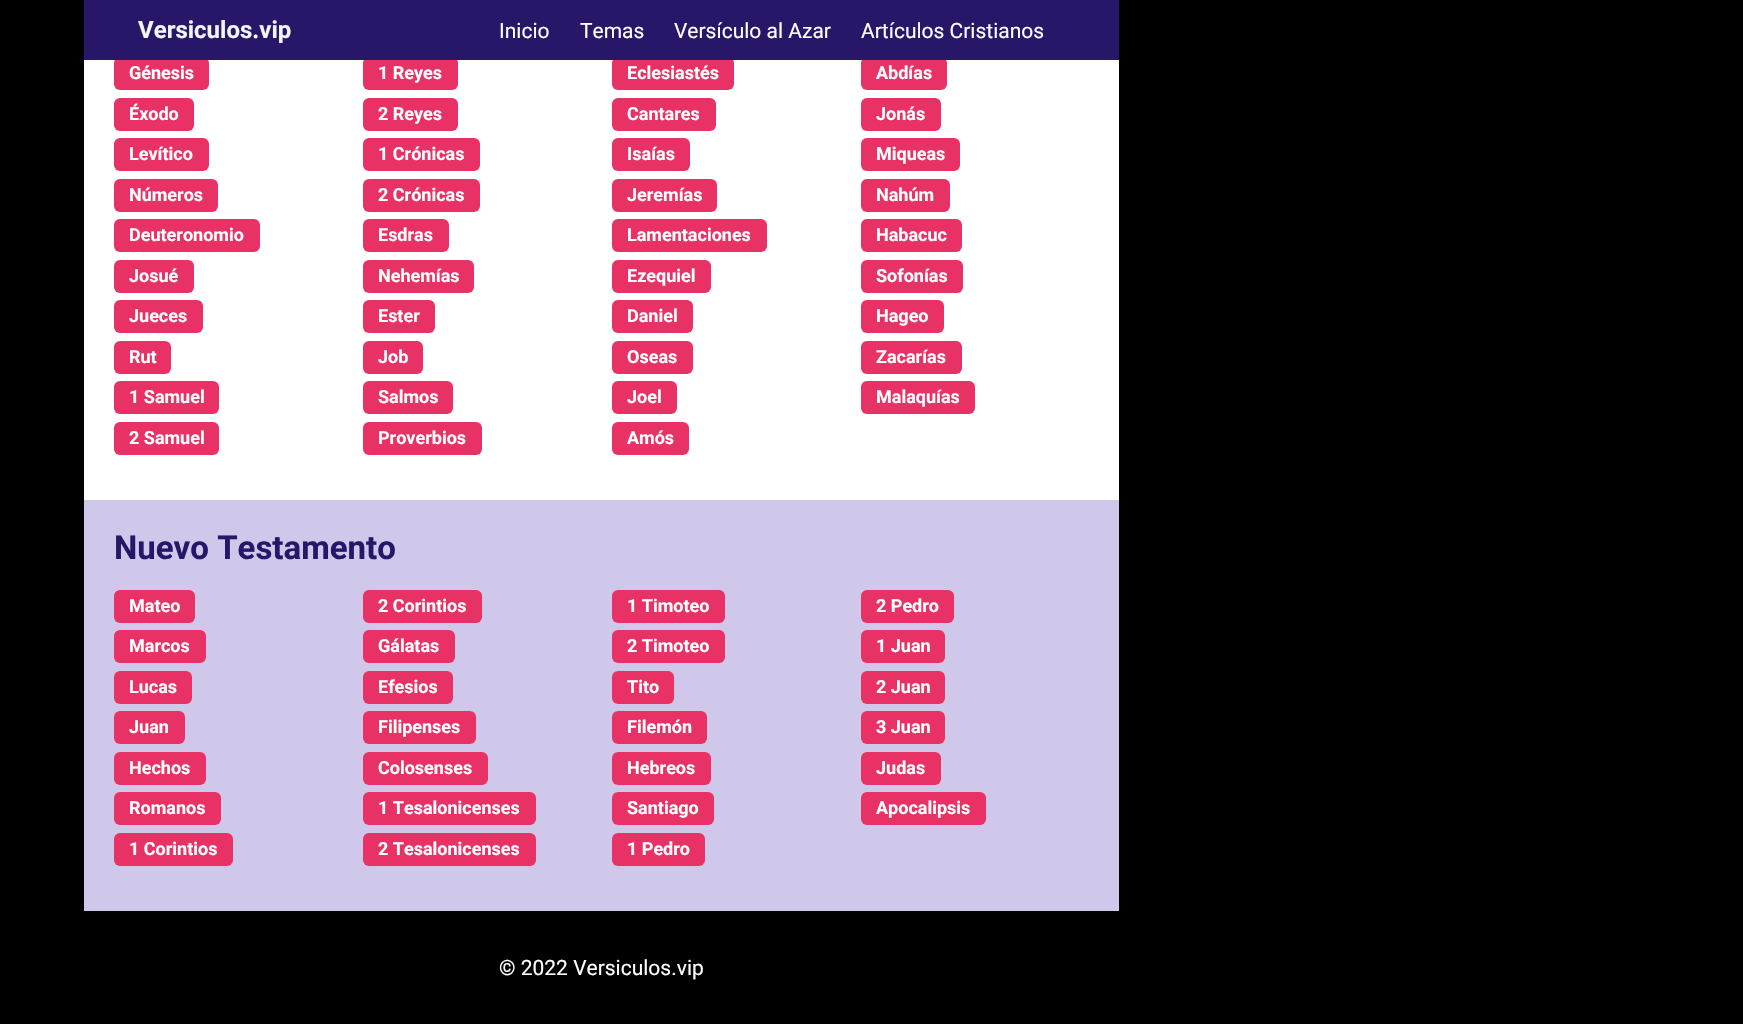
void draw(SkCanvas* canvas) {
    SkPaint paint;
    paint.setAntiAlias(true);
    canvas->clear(0xFF000000);
    paint.setColor(0xFFFFFFFF);
    canvas->drawRect(SkRect::MakeXYWH(84, 60, 1035, 440), paint);
    paint.setColor(0xFFE83164);
    canvas->drawRoundRect(SkRect::MakeXYWH(114, 57, 95, 33), 6, 6, paint);
    canvas->drawRoundRect(SkRect::MakeXYWH(363, 57, 95, 33), 6, 6, paint);
    canvas->drawRoundRect(SkRect::MakeXYWH(612, 57, 122, 33), 6, 6, paint);
    canvas->drawRoundRect(SkRect::MakeXYWH(861, 57, 86, 33), 6, 6, paint);
    paint.setColor(0xFF281769);
    canvas->drawRect(SkRect::MakeXYWH(84, 0, 1035, 60), paint);
    SkFont font1(fontMgr->matchFamilyStyle("Roboto", SkFontStyle::Bold()), 24);
    font1.setSubpixel(true);
    paint.setColor(0xFFF3F6F9);
    canvas->drawString("Versiculos.vip", 138, 38, font1, paint);
    SkFont font2(fontMgr->matchFamilyStyle("Roboto", SkFontStyle::Normal()), 21);
    font2.setSubpixel(true);
    paint.setColor(0xFFFFFFFF);
    canvas->drawString("Inicio", 499, 38, font2, paint);
    canvas->drawString("Temas", 580, 38, font2, paint);
    canvas->drawString("Versículo al Azar", 674, 38, font2, paint);
    canvas->drawString("Artículos Cristianos", 861, 38, font2, paint);
    SkFont font3(fontMgr->matchFamilyStyle("Roboto", SkFontStyle::Bold()), 18);
    font3.setSubpixel(true);
    canvas->drawString("Génesis", 129, 79, font3, paint);
    canvas->drawString("1 Reyes", 378, 79, font3, paint);
    canvas->drawString("Eclesiastés", 627, 79, font3, paint);
    canvas->drawString("Abdías", 876, 79, font3, paint);
    paint.setColor(0xFFE83164);
    canvas->drawRoundRect(SkRect::MakeXYWH(114, 98, 80, 33), 6, 6, paint);
    paint.setColor(0xFFFFFFFF);
    canvas->drawString("Éxodo", 129, 120, font3, paint);
    paint.setColor(0xFFE83164);
    canvas->drawRoundRect(SkRect::MakeXYWH(363, 98, 95, 33), 6, 6, paint);
    paint.setColor(0xFFFFFFFF);
    canvas->drawString("2 Reyes", 378, 120, font3, paint);
    paint.setColor(0xFFE83164);
    canvas->drawRoundRect(SkRect::MakeXYWH(612, 98, 104, 33), 6, 6, paint);
    paint.setColor(0xFFFFFFFF);
    canvas->drawString("Cantares", 627, 120, font3, paint);
    paint.setColor(0xFFE83164);
    canvas->drawRoundRect(SkRect::MakeXYWH(861, 98, 80, 33), 6, 6, paint);
    paint.setColor(0xFFFFFFFF);
    canvas->drawString("Jonás", 876, 120, font3, paint);
    paint.setColor(0xFFE83164);
    canvas->drawRoundRect(SkRect::MakeXYWH(114, 138, 95, 33), 6, 6, paint);
    paint.setColor(0xFFFFFFFF);
    canvas->drawString("Levítico", 129, 160, font3, paint);
    paint.setColor(0xFFE83164);
    canvas->drawRoundRect(SkRect::MakeXYWH(363, 138, 117, 33), 6, 6, paint);
    paint.setColor(0xFFFFFFFF);
    canvas->drawString("1 Crónicas", 378, 160, font3, paint);
    paint.setColor(0xFFE83164);
    canvas->drawRoundRect(SkRect::MakeXYWH(612, 138, 78, 33), 6, 6, paint);
    paint.setColor(0xFFFFFFFF);
    canvas->drawString("Isaías", 627, 160, font3, paint);
    paint.setColor(0xFFE83164);
    canvas->drawRoundRect(SkRect::MakeXYWH(861, 138, 99, 33), 6, 6, paint);
    paint.setColor(0xFFFFFFFF);
    canvas->drawString("Miqueas", 876, 160, font3, paint);
    paint.setColor(0xFFE83164);
    canvas->drawRoundRect(SkRect::MakeXYWH(114, 179, 104, 33), 6, 6, paint);
    paint.setColor(0xFFFFFFFF);
    canvas->drawString("Números", 129, 201, font3, paint);
    paint.setColor(0xFFE83164);
    canvas->drawRoundRect(SkRect::MakeXYWH(363, 179, 117, 33), 6, 6, paint);
    paint.setColor(0xFFFFFFFF);
    canvas->drawString("2 Crónicas", 378, 201, font3, paint);
    paint.setColor(0xFFE83164);
    canvas->drawRoundRect(SkRect::MakeXYWH(612, 179, 105, 33), 6, 6, paint);
    paint.setColor(0xFFFFFFFF);
    canvas->drawString("Jeremías", 627, 201, font3, paint);
    paint.setColor(0xFFE83164);
    canvas->drawRoundRect(SkRect::MakeXYWH(861, 179, 89, 33), 6, 6, paint);
    paint.setColor(0xFFFFFFFF);
    canvas->drawString("Nahúm", 876, 201, font3, paint);
    paint.setColor(0xFFE83164);
    canvas->drawRoundRect(SkRect::MakeXYWH(114, 219, 146, 33), 6, 6, paint);
    paint.setColor(0xFFFFFFFF);
    canvas->drawString("Deuteronomio", 129, 241, font3, paint);
    paint.setColor(0xFFE83164);
    canvas->drawRoundRect(SkRect::MakeXYWH(363, 219, 86, 33), 6, 6, paint);
    paint.setColor(0xFFFFFFFF);
    canvas->drawString("Esdras", 378, 241, font3, paint);
    paint.setColor(0xFFE83164);
    canvas->drawRoundRect(SkRect::MakeXYWH(612, 219, 155, 33), 6, 6, paint);
    paint.setColor(0xFFFFFFFF);
    canvas->drawString("Lamentaciones", 627, 241, font3, paint);
    paint.setColor(0xFFE83164);
    canvas->drawRoundRect(SkRect::MakeXYWH(861, 219, 101, 33), 6, 6, paint);
    paint.setColor(0xFFFFFFFF);
    canvas->drawString("Habacuc", 876, 241, font3, paint);
    paint.setColor(0xFFE83164);
    canvas->drawRoundRect(SkRect::MakeXYWH(114, 260, 80, 33), 6, 6, paint);
    paint.setColor(0xFFFFFFFF);
    canvas->drawString("Josué", 129, 282, font3, paint);
    paint.setColor(0xFFE83164);
    canvas->drawRoundRect(SkRect::MakeXYWH(363, 260, 111, 33), 6, 6, paint);
    paint.setColor(0xFFFFFFFF);
    canvas->drawString("Nehemías", 378, 282, font3, paint);
    paint.setColor(0xFFE83164);
    canvas->drawRoundRect(SkRect::MakeXYWH(612, 260, 99, 33), 6, 6, paint);
    paint.setColor(0xFFFFFFFF);
    canvas->drawString("Ezequiel", 627, 282, font3, paint);
    paint.setColor(0xFFE83164);
    canvas->drawRoundRect(SkRect::MakeXYWH(861, 260, 102, 33), 6, 6, paint);
    paint.setColor(0xFFFFFFFF);
    canvas->drawString("Sofonías", 876, 282, font3, paint);
    paint.setColor(0xFFE83164);
    canvas->drawRoundRect(SkRect::MakeXYWH(114, 300, 89, 33), 6, 6, paint);
    paint.setColor(0xFFFFFFFF);
    canvas->drawString("Jueces", 129, 322, font3, paint);
    paint.setColor(0xFFE83164);
    canvas->drawRoundRect(SkRect::MakeXYWH(363, 300, 72, 33), 6, 6, paint);
    paint.setColor(0xFFFFFFFF);
    canvas->drawString("Ester", 378, 322, font3, paint);
    paint.setColor(0xFFE83164);
    canvas->drawRoundRect(SkRect::MakeXYWH(612, 300, 81, 33), 6, 6, paint);
    paint.setColor(0xFFFFFFFF);
    canvas->drawString("Daniel", 627, 322, font3, paint);
    paint.setColor(0xFFE83164);
    canvas->drawRoundRect(SkRect::MakeXYWH(861, 300, 83, 33), 6, 6, paint);
    paint.setColor(0xFFFFFFFF);
    canvas->drawString("Hageo", 876, 322, font3, paint);
    paint.setColor(0xFFE83164);
    canvas->drawRoundRect(SkRect::MakeXYWH(114, 341, 57, 33), 6, 6, paint);
    paint.setColor(0xFFFFFFFF);
    canvas->drawString("Rut", 129, 363, font3, paint);
    paint.setColor(0xFFE83164);
    canvas->drawRoundRect(SkRect::MakeXYWH(363, 341, 60, 33), 6, 6, paint);
    paint.setColor(0xFFFFFFFF);
    canvas->drawString("Job", 378, 363, font3, paint);
    paint.setColor(0xFFE83164);
    canvas->drawRoundRect(SkRect::MakeXYWH(612, 341, 81, 33), 6, 6, paint);
    paint.setColor(0xFFFFFFFF);
    canvas->drawString("Oseas", 627, 363, font3, paint);
    paint.setColor(0xFFE83164);
    canvas->drawRoundRect(SkRect::MakeXYWH(861, 341, 101, 33), 6, 6, paint);
    paint.setColor(0xFFFFFFFF);
    canvas->drawString("Zacarías", 876, 363, font3, paint);
    paint.setColor(0xFFE83164);
    canvas->drawRoundRect(SkRect::MakeXYWH(114, 381, 105, 33), 6, 6, paint);
    paint.setColor(0xFFFFFFFF);
    canvas->drawString("1 Samuel", 129, 403, font3, paint);
    paint.setColor(0xFFE83164);
    canvas->drawRoundRect(SkRect::MakeXYWH(363, 381, 90, 33), 6, 6, paint);
    paint.setColor(0xFFFFFFFF);
    canvas->drawString("Salmos", 378, 403, font3, paint);
    paint.setColor(0xFFE83164);
    canvas->drawRoundRect(SkRect::MakeXYWH(612, 381, 65, 33), 6, 6, paint);
    paint.setColor(0xFFFFFFFF);
    canvas->drawString("Joel", 627, 403, font3, paint);
    paint.setColor(0xFFE83164);
    canvas->drawRoundRect(SkRect::MakeXYWH(861, 381, 114, 33), 6, 6, paint);
    paint.setColor(0xFFFFFFFF);
    canvas->drawString("Malaquías", 876, 403, font3, paint);
    paint.setColor(0xFFE83164);
    canvas->drawRoundRect(SkRect::MakeXYWH(114, 422, 105, 33), 6, 6, paint);
    paint.setColor(0xFFFFFFFF);
    canvas->drawString("2 Samuel", 129, 444, font3, paint);
    paint.setColor(0xFFE83164);
    canvas->drawRoundRect(SkRect::MakeXYWH(363, 422, 119, 33), 6, 6, paint);
    paint.setColor(0xFFFFFFFF);
    canvas->drawString("Proverbios", 378, 444, font3, paint);
    paint.setColor(0xFFE83164);
    canvas->drawRoundRect(SkRect::MakeXYWH(612, 422, 77, 33), 6, 6, paint);
    paint.setColor(0xFFFFFFFF);
    canvas->drawString("Amós", 627, 444, font3, paint);
    paint.setColor(0xFFCFC8EA);
    canvas->drawRect(SkRect::MakeXYWH(84, 500, 1035, 411), paint);
    SkFont font4(fontMgr->matchFamilyStyle("Roboto", SkFontStyle::Bold()), 33);
    font4.setSubpixel(true);
    paint.setColor(0xFF281769);
    canvas->drawString("Nuevo Testamento", 114, 559, font4, paint);
    paint.setColor(0xFFE83164);
    canvas->drawRoundRect(SkRect::MakeXYWH(114, 590, 81, 33), 6, 6, paint);
    paint.setColor(0xFFFFFFFF);
    canvas->drawString("Mateo", 129, 612, font3, paint);
    paint.setColor(0xFFE83164);
    canvas->drawRoundRect(SkRect::MakeXYWH(363, 590, 119, 33), 6, 6, paint);
    paint.setColor(0xFFFFFFFF);
    canvas->drawString("2 Corintios", 378, 612, font3, paint);
    paint.setColor(0xFFE83164);
    canvas->drawRoundRect(SkRect::MakeXYWH(612, 590, 113, 33), 6, 6, paint);
    paint.setColor(0xFFFFFFFF);
    canvas->drawString("1 Timoteo", 627, 612, font3, paint);
    paint.setColor(0xFFE83164);
    canvas->drawRoundRect(SkRect::MakeXYWH(861, 590, 93, 33), 6, 6, paint);
    paint.setColor(0xFFFFFFFF);
    canvas->drawString("2 Pedro", 876, 612, font3, paint);
    paint.setColor(0xFFE83164);
    canvas->drawRoundRect(SkRect::MakeXYWH(114, 630, 92, 33), 6, 6, paint);
    paint.setColor(0xFFFFFFFF);
    canvas->drawString("Marcos", 129, 652, font3, paint);
    paint.setColor(0xFFE83164);
    canvas->drawRoundRect(SkRect::MakeXYWH(363, 630, 92, 33), 6, 6, paint);
    paint.setColor(0xFFFFFFFF);
    canvas->drawString("Gálatas", 378, 652, font3, paint);
    paint.setColor(0xFFE83164);
    canvas->drawRoundRect(SkRect::MakeXYWH(612, 630, 113, 33), 6, 6, paint);
    paint.setColor(0xFFFFFFFF);
    canvas->drawString("2 Timoteo", 627, 652, font3, paint);
    paint.setColor(0xFFE83164);
    canvas->drawRoundRect(SkRect::MakeXYWH(861, 630, 84, 33), 6, 6, paint);
    paint.setColor(0xFFFFFFFF);
    canvas->drawString("1 Juan", 876, 652, font3, paint);
    paint.setColor(0xFFE83164);
    canvas->drawRoundRect(SkRect::MakeXYWH(114, 671, 78, 33), 6, 6, paint);
    paint.setColor(0xFFFFFFFF);
    canvas->drawString("Lucas", 129, 693, font3, paint);
    paint.setColor(0xFFE83164);
    canvas->drawRoundRect(SkRect::MakeXYWH(363, 671, 90, 33), 6, 6, paint);
    paint.setColor(0xFFFFFFFF);
    canvas->drawString("Efesios", 378, 693, font3, paint);
    paint.setColor(0xFFE83164);
    canvas->drawRoundRect(SkRect::MakeXYWH(612, 671, 62, 33), 6, 6, paint);
    paint.setColor(0xFFFFFFFF);
    canvas->drawString("Tito", 627, 693, font3, paint);
    paint.setColor(0xFFE83164);
    canvas->drawRoundRect(SkRect::MakeXYWH(861, 671, 84, 33), 6, 6, paint);
    paint.setColor(0xFFFFFFFF);
    canvas->drawString("2 Juan", 876, 693, font3, paint);
    paint.setColor(0xFFE83164);
    canvas->drawRoundRect(SkRect::MakeXYWH(114, 711, 71, 33), 6, 6, paint);
    paint.setColor(0xFFFFFFFF);
    canvas->drawString("Juan", 129, 733, font3, paint);
    paint.setColor(0xFFE83164);
    canvas->drawRoundRect(SkRect::MakeXYWH(363, 711, 113, 33), 6, 6, paint);
    paint.setColor(0xFFFFFFFF);
    canvas->drawString("Filipenses", 378, 733, font3, paint);
    paint.setColor(0xFFE83164);
    canvas->drawRoundRect(SkRect::MakeXYWH(612, 711, 95, 33), 6, 6, paint);
    paint.setColor(0xFFFFFFFF);
    canvas->drawString("Filemón", 627, 733, font3, paint);
    paint.setColor(0xFFE83164);
    canvas->drawRoundRect(SkRect::MakeXYWH(861, 711, 84, 33), 6, 6, paint);
    paint.setColor(0xFFFFFFFF);
    canvas->drawString("3 Juan", 876, 733, font3, paint);
    paint.setColor(0xFFE83164);
    canvas->drawRoundRect(SkRect::MakeXYWH(114, 752, 92, 33), 6, 6, paint);
    paint.setColor(0xFFFFFFFF);
    canvas->drawString("Hechos", 129, 774, font3, paint);
    paint.setColor(0xFFE83164);
    canvas->drawRoundRect(SkRect::MakeXYWH(363, 752, 125, 33), 6, 6, paint);
    paint.setColor(0xFFFFFFFF);
    canvas->drawString("Colosenses", 378, 774, font3, paint);
    paint.setColor(0xFFE83164);
    canvas->drawRoundRect(SkRect::MakeXYWH(612, 752, 99, 33), 6, 6, paint);
    paint.setColor(0xFFFFFFFF);
    canvas->drawString("Hebreos", 627, 774, font3, paint);
    paint.setColor(0xFFE83164);
    canvas->drawRoundRect(SkRect::MakeXYWH(861, 752, 80, 33), 6, 6, paint);
    paint.setColor(0xFFFFFFFF);
    canvas->drawString("Judas", 876, 774, font3, paint);
    paint.setColor(0xFFE83164);
    canvas->drawRoundRect(SkRect::MakeXYWH(114, 792, 107, 33), 6, 6, paint);
    paint.setColor(0xFFFFFFFF);
    canvas->drawString("Romanos", 129, 814, font3, paint);
    paint.setColor(0xFFE83164);
    canvas->drawRoundRect(SkRect::MakeXYWH(363, 792, 173, 33), 6, 6, paint);
    paint.setColor(0xFFFFFFFF);
    canvas->drawString("1 Tesalonicenses", 378, 814, font3, paint);
    paint.setColor(0xFFE83164);
    canvas->drawRoundRect(SkRect::MakeXYWH(612, 792, 102, 33), 6, 6, paint);
    paint.setColor(0xFFFFFFFF);
    canvas->drawString("Santiago", 627, 814, font3, paint);
    paint.setColor(0xFFE83164);
    canvas->drawRoundRect(SkRect::MakeXYWH(861, 792, 125, 33), 6, 6, paint);
    paint.setColor(0xFFFFFFFF);
    canvas->drawString("Apocalipsis", 876, 814, font3, paint);
    paint.setColor(0xFFE83164);
    canvas->drawRoundRect(SkRect::MakeXYWH(114, 833, 119, 33), 6, 6, paint);
    paint.setColor(0xFFFFFFFF);
    canvas->drawString("1 Corintios", 129, 855, font3, paint);
    paint.setColor(0xFFE83164);
    canvas->drawRoundRect(SkRect::MakeXYWH(363, 833, 173, 33), 6, 6, paint);
    paint.setColor(0xFFFFFFFF);
    canvas->drawString("2 Tesalonicenses", 378, 855, font3, paint);
    paint.setColor(0xFFE83164);
    canvas->drawRoundRect(SkRect::MakeXYWH(612, 833, 93, 33), 6, 6, paint);
    paint.setColor(0xFFFFFFFF);
    canvas->drawString("1 Pedro", 627, 855, font3, paint);
    canvas->drawString("© 2022 Versiculos.vip", 499, 975, font2, paint);
}
